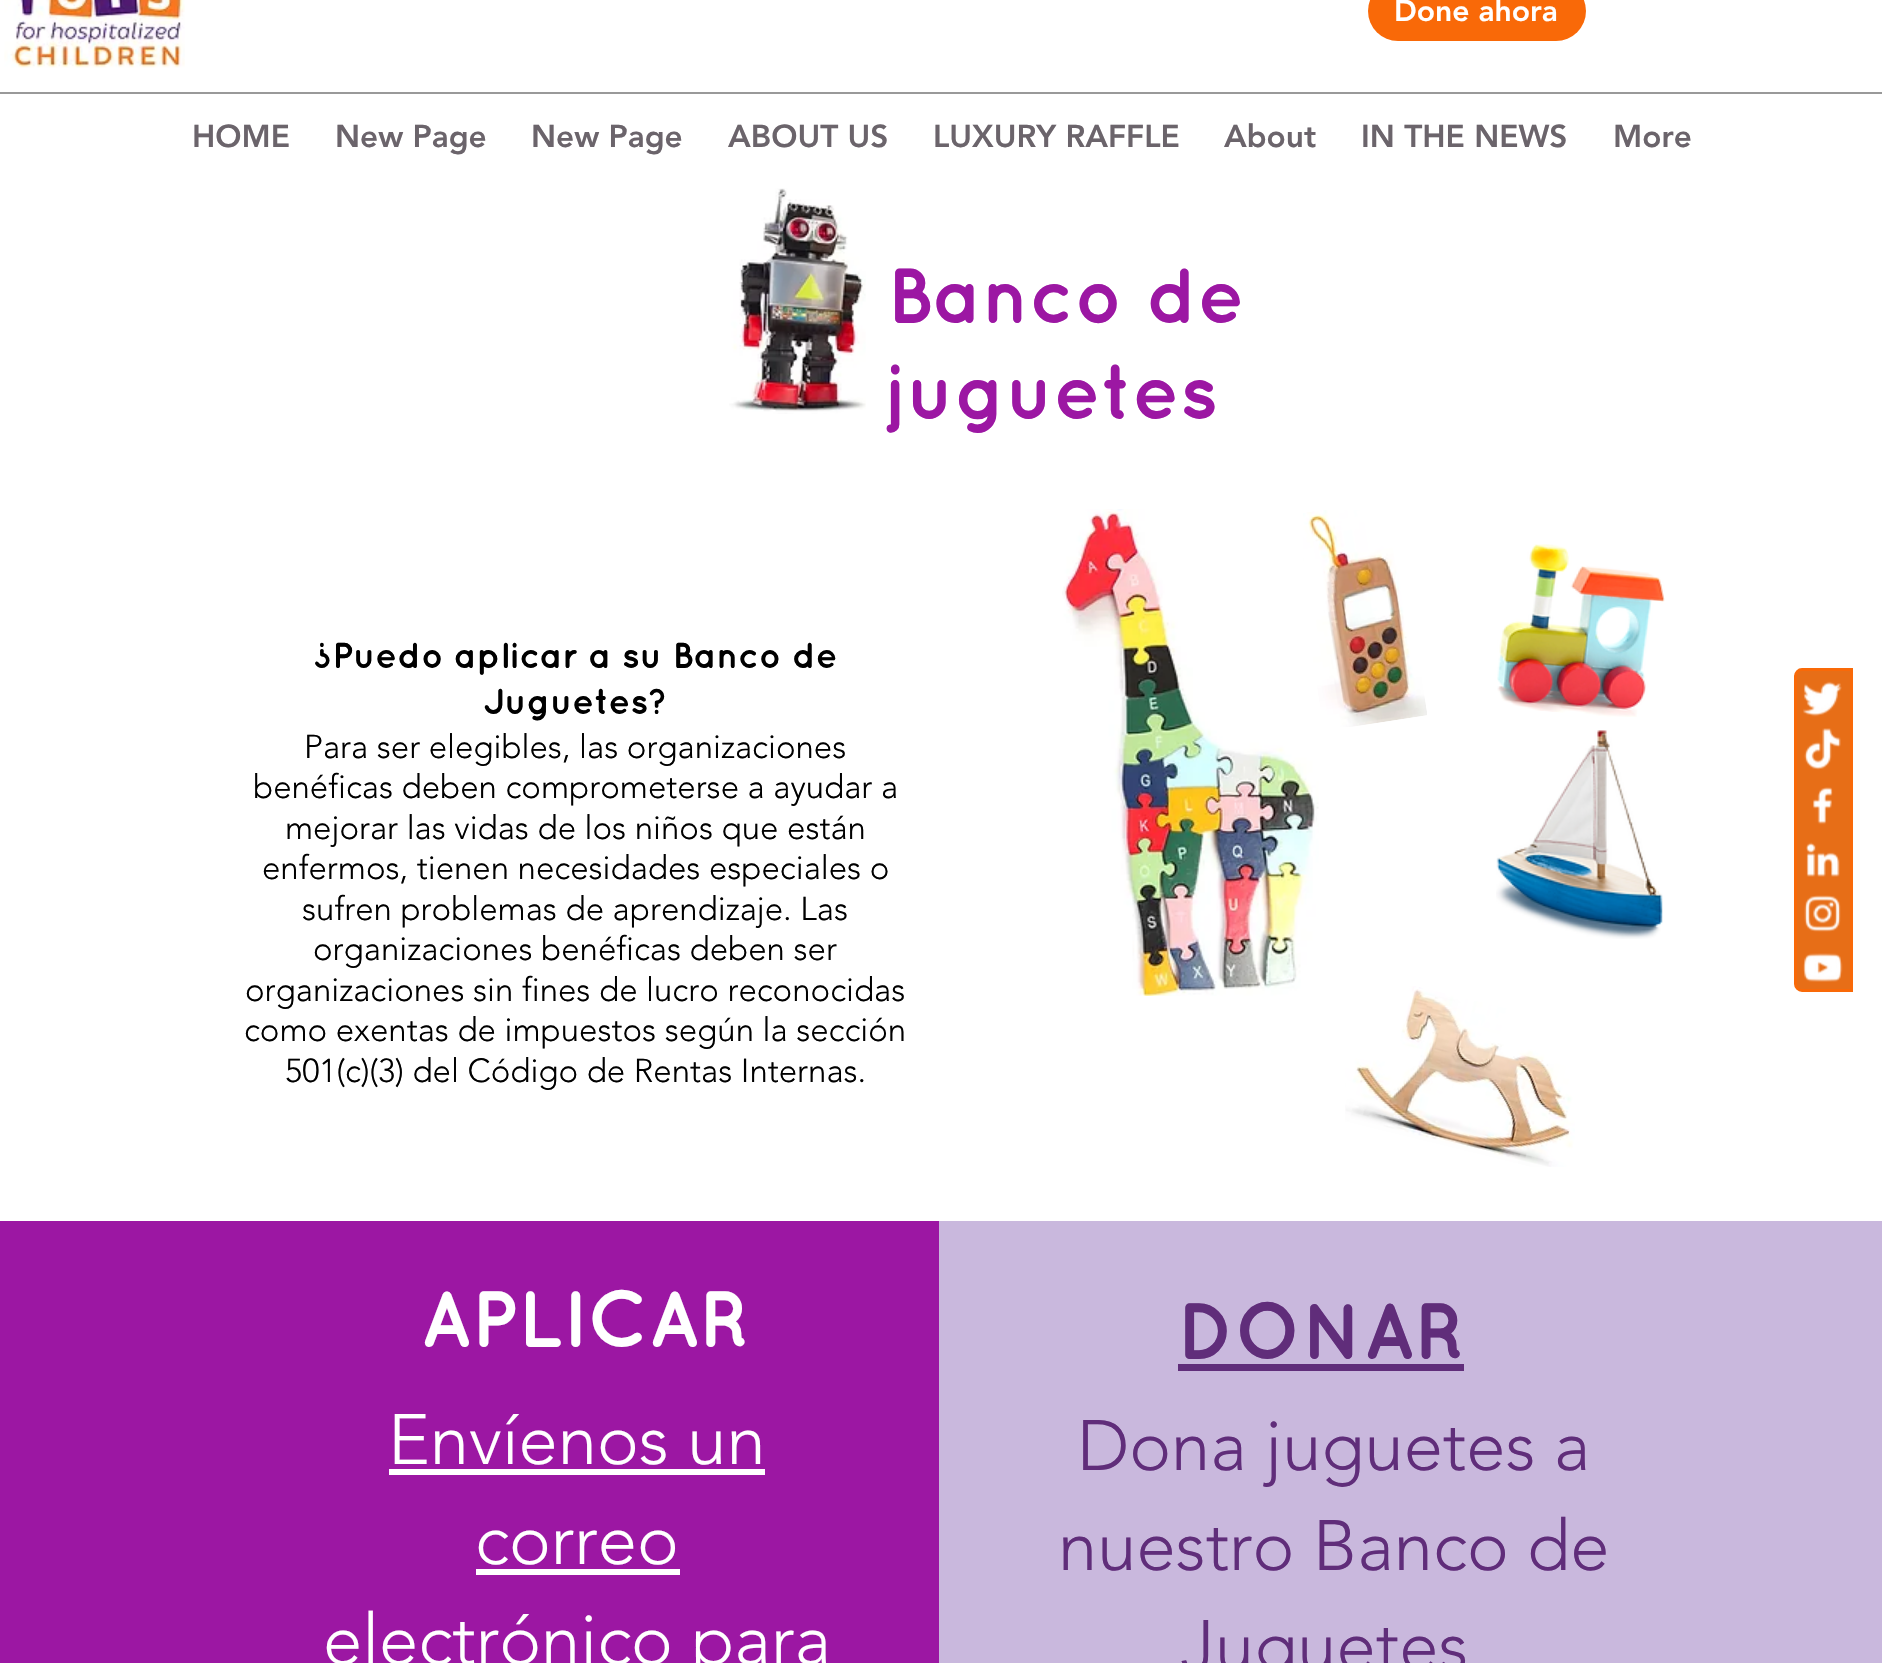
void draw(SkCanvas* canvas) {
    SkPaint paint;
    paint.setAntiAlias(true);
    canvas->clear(0xFFFFFFFF);
    canvas->drawImageRect(SkImages::DeferredFromEncodedData(SkData::MakeFromFileName("img1.png")), SkRect::MakeXYWH(4, 0, 181, 68), SkSamplingOptions());
    paint.setColor(0xFFF96908);
    canvas->drawRoundRect(SkRect::MakeXYWH(1368, -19, 218, 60), 30, 30, paint);
    SkFont font1(fontMgr->matchFamilyStyle("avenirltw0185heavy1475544", SkFontStyle(900, SkFontStyle::kNormal_Width, SkFontStyle::kUpright_Slant)), 30);
    font1.setSubpixel(true);
    paint.setColor(0xFFFFFFFF);
    canvas->drawString("Done ahora", 1394, 21, font1, paint);
    paint.setColor(0xFF999999);
    canvas->drawRect(SkRect::MakeXYWH(0, 92, 1882, 2), paint);
    SkFont font2(fontMgr->matchFamilyStyle("avenirltw0185heavy1475544", SkFontStyle(900, SkFontStyle::kNormal_Width, SkFontStyle::kUpright_Slant)), 31.5f);
    font2.setSubpixel(true);
    paint.setColor(0xFF6B646B);
    canvas->drawString("HOME", 192, 147, font2, paint);
    canvas->drawString("New Page", 335, 147, font2, paint);
    canvas->drawString("New Page", 531, 147, font2, paint);
    canvas->drawString("ABOUT US", 728, 147, font2, paint);
    canvas->drawString("LUXURY RAFFLE", 933, 147, font2, paint);
    canvas->drawString("About", 1224, 147, font2, paint);
    canvas->drawString("IN THE NEWS", 1361, 147, font2, paint);
    canvas->drawString("More", 1613, 147, font2, paint);
    canvas->drawImageRect(SkImages::DeferredFromEncodedData(SkData::MakeFromFileName("img2.png")), SkRect::MakeXYWH(729, 188, 137, 226), SkSamplingOptions());
    SkFont font3(fontMgr->matchFamilyStyle("Quicksand", SkFontStyle::Bold()), 78);
    font3.setSubpixel(true);
    paint.setColor(0xFF9C17A3);
    canvas->drawString("Banco de", 887, 323, font3, paint);
    canvas->drawString("juguetes", 887, 419, font3, paint);
    SkFont font4(fontMgr->matchFamilyStyle("Quicksand", SkFontStyle::Bold()), 36);
    font4.setSubpixel(true);
    paint.setColor(0xFF000000);
    canvas->drawString("¿Puedo aplicar a su Banco de", 313, 668, font4, paint);
    canvas->drawString("Juguetes?", 483, 714, font4, paint);
    SkFont font5(fontMgr->matchFamilyStyle("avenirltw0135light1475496", SkFontStyle(300, SkFontStyle::kNormal_Width, SkFontStyle::kUpright_Slant)), 33);
    font5.setSubpixel(true);
    canvas->drawString("Para ser elegibles, las organizaciones", 304, 758, font5, paint);
    canvas->drawString("benéficas deben comprometerse a ayudar a", 253, 798, font5, paint);
    canvas->drawString("mejorar las vidas de los niños que están", 285, 839, font5, paint);
    canvas->drawString("enfermos, tienen necesidades especiales o", 262, 879, font5, paint);
    canvas->drawString("sufren problemas de aprendizaje. Las", 302, 920, font5, paint);
    canvas->drawString("organizaciones benéficas deben ser", 313, 960, font5, paint);
    canvas->drawString("organizaciones sin fines de lucro reconocidas", 245, 1001, font5, paint);
    canvas->drawString("como exentas de impuestos según la sección", 244, 1041, font5, paint);
    canvas->drawString("501(c)(3) del Código de Rentas Internas.", 285, 1082, font5, paint);
    canvas->drawImageRect(SkImages::DeferredFromEncodedData(SkData::MakeFromFileName("img3.png")), SkRect::MakeXYWH(1062, 509, 257, 487), SkSamplingOptions());
    canvas->drawImageRect(SkImages::DeferredFromEncodedData(SkData::MakeFromFileName("img4.png")), SkRect::MakeXYWH(1303, 510, 124, 217), SkSamplingOptions());
    canvas->drawImageRect(SkImages::DeferredFromEncodedData(SkData::MakeFromFileName("img5.png")), SkRect::MakeXYWH(1497, 544, 168, 173), SkSamplingOptions());
    canvas->drawImageRect(SkImages::DeferredFromEncodedData(SkData::MakeFromFileName("img6.png")), SkRect::MakeXYWH(1496, 730, 167, 209), SkSamplingOptions());
    canvas->drawImageRect(SkImages::DeferredFromEncodedData(SkData::MakeFromFileName("img7.png")), SkRect::MakeXYWH(1345, 986, 230, 181), SkSamplingOptions());
    paint.setColor(0xFF9C17A3);
    canvas->drawRect(SkRect::MakeXYWH(0, 1221, 939, 442), paint);
    SkFont font6(fontMgr->matchFamilyStyle("Quicksand", SkFontStyle::Bold()), 79.5f);
    font6.setSubpixel(true);
    paint.setColor(0xFFFFFFFF);
    canvas->drawString("APLICAR", 420, 1347, font6, paint);
    SkFont font7(fontMgr->matchFamilyStyle("avenirltw0135light1475496", SkFontStyle(300, SkFontStyle::kNormal_Width, SkFontStyle::kUpright_Slant)), 70.5f);
    font7.setSubpixel(true);
    canvas->drawString("Envíenos un", 388, 1464, font7, paint);
    canvas->drawRect(SkRect::MakeXYWH(389, 1469, 376, 6), paint);
    canvas->drawString("correo", 475, 1564, font7, paint);
    canvas->drawRect(SkRect::MakeXYWH(476, 1569, 204, 6), paint);
    canvas->drawString("electrónico para", 323, 1664, font7, paint);
    paint.setColor(0xFFC9B8DD);
    canvas->drawRect(SkRect::MakeXYWH(939, 1221, 943, 442), paint);
    paint.setColor(0xFF602D7A);
    canvas->drawString("DONAR", 1177, 1359, font6, paint);
    canvas->drawRect(SkRect::MakeXYWH(1178, 1364, 286, 7), paint);
    canvas->drawString("Dona juguetes a", 1077, 1470, font7, paint);
    canvas->drawString("nuestro Banco de", 1058, 1570, font7, paint);
    canvas->drawString("Juguetes", 1181, 1670, font7, paint);
    paint.setColor(0xFFE76E17);
    canvas->drawPath(SkPathBuilder().moveTo(1802, 669.5f).lineTo(1851.5f, 669.5f).lineTo(1851.5f, 990.5f).lineTo(1802, 990.5f).cubicTo(1798.5f, 990.5f, 1795.5f, 987.5f, 1795.5f, 984).lineTo(1795.5f, 676).cubicTo(1795.5f, 672.5f, 1798.5f, 669.5f, 1802, 669.5f).close().detach(), paint);
    paint.setStyle(SkPaint::kStroke_Style);
    paint.setStrokeWidth(3);
    paint.setColor(0xFFF96908);
    canvas->drawPath(SkPathBuilder().moveTo(1802, 669.5f).lineTo(1851.5f, 669.5f).lineTo(1851.5f, 990.5f).lineTo(1802, 990.5f).cubicTo(1798.5f, 990.5f, 1795.5f, 987.5f, 1795.5f, 984).lineTo(1795.5f, 676).cubicTo(1795.5f, 672.5f, 1798.5f, 669.5f, 1802, 669.5f).close().detach(), paint);
    canvas->drawImageRect(SkImages::DeferredFromEncodedData(SkData::MakeFromFileName("img8.png")), SkRect::MakeXYWH(1803, 681, 39, 36), SkSamplingOptions());
    canvas->drawImageRect(SkImages::DeferredFromEncodedData(SkData::MakeFromFileName("img9.png")), SkRect::MakeXYWH(1804, 728, 37, 42), SkSamplingOptions());
    canvas->drawImageRect(SkImages::DeferredFromEncodedData(SkData::MakeFromFileName("img10.png")), SkRect::MakeXYWH(1813, 787, 20, 38), SkSamplingOptions());
    canvas->drawImageRect(SkImages::DeferredFromEncodedData(SkData::MakeFromFileName("img11.png")), SkRect::MakeXYWH(1806, 842, 34, 35), SkSamplingOptions());
    canvas->drawImageRect(SkImages::DeferredFromEncodedData(SkData::MakeFromFileName("img12.png")), SkRect::MakeXYWH(1804, 895, 37, 37), SkSamplingOptions());
    canvas->drawImageRect(SkImages::DeferredFromEncodedData(SkData::MakeFromFileName("img13.png")), SkRect::MakeXYWH(1803, 953, 40, 29), SkSamplingOptions());
}
